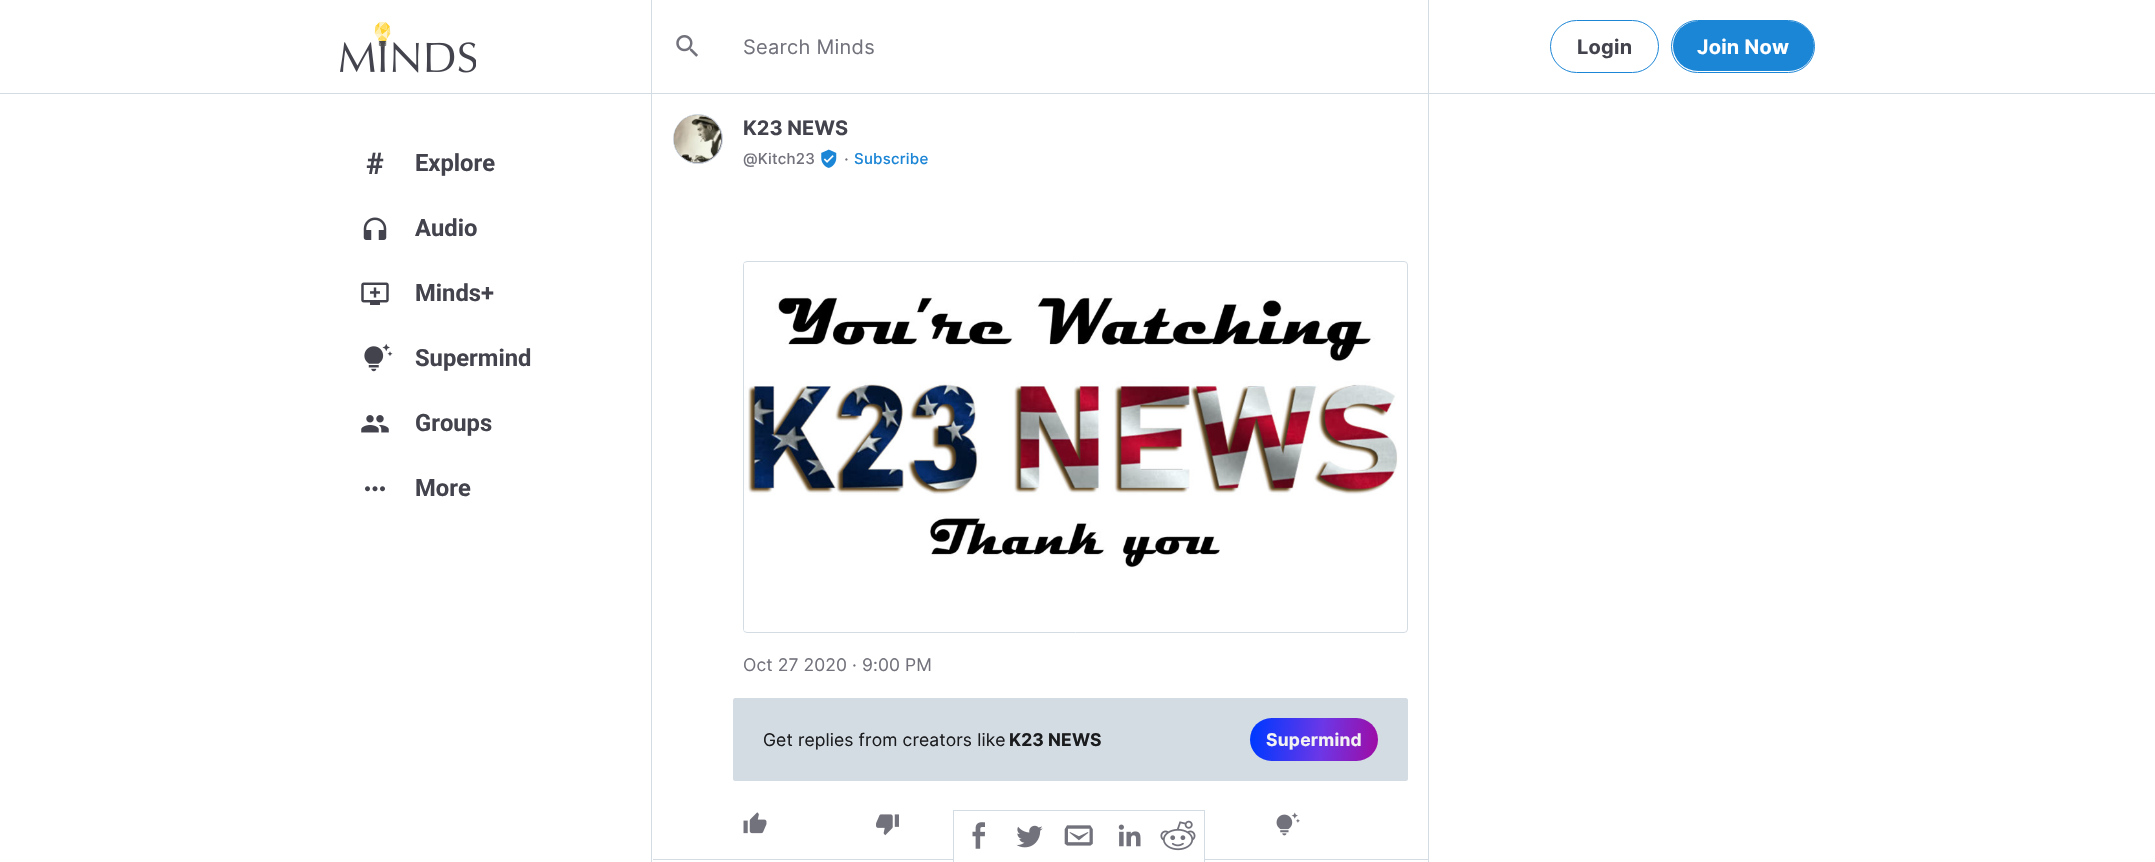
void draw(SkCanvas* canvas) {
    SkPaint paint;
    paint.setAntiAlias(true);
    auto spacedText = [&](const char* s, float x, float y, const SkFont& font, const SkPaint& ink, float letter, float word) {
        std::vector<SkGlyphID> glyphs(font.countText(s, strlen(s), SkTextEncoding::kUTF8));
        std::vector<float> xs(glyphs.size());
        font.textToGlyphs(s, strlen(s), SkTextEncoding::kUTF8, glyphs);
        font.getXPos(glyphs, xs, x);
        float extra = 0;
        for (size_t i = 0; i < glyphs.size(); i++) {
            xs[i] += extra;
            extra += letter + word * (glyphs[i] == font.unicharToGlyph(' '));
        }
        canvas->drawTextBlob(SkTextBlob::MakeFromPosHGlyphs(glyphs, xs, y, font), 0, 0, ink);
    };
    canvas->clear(0xFFFFFFFF);
    paint.setColor(0xFFD3DBE3);
    canvas->drawRect(SkRect::MakeXYWH(0, 93, 2155, 1), paint);
    canvas->drawRect(SkRect::MakeXYWH(651, 0, 1, 93), paint);
    canvas->drawImageRect(SkImages::DeferredFromEncodedData(SkData::MakeFromFileName("img1.png")), SkRect::MakeXYWH(340, 21, 136, 52), SkSamplingOptions());
    canvas->drawRect(SkRect::MakeXYWH(1428, 0, 1, 93), paint);
    canvas->drawImageRect(SkImages::DeferredFromEncodedData(SkData::MakeFromFileName("img2.png")), SkRect::MakeXYWH(676, 35, 22, 22), SkSamplingOptions());
    SkFont font1(fontMgr->matchFamilyStyle("Inter", SkFontStyle::Normal()), 20);
    font1.setSubpixel(true);
    paint.setColor(0xFF72727C);
    spacedText("Search Minds", 743, 54, font1, paint, 0.25f, 0);
    paint.setStyle(SkPaint::kStroke_Style);
    paint.setStrokeWidth(1);
    paint.setColor(0xFF1B85D6);
    canvas->drawRoundRect(SkRect::MakeXYWH(1550.5f, 20.5f, 108, 52), 26, 26, paint);
    SkFont font2(fontMgr->matchFamilyStyle("Inter", SkFontStyle::Bold()), 20);
    font2.setSubpixel(true);
    paint.setStyle(SkPaint::kFill_Style);
    paint.setColor(0xFF43434D);
    spacedText("Login", 1577, 54, font2, paint, 0.25f, 0);
    paint.setColor(0xFF1B85D6);
    canvas->drawRoundRect(SkRect::MakeXYWH(1673, 21, 141, 50), 25, 25, paint);
    paint.setStyle(SkPaint::kStroke_Style);
    canvas->drawRoundRect(SkRect::MakeXYWH(1671.5f, 20.5f, 143, 52), 26, 26, paint);
    paint.setStyle(SkPaint::kFill_Style);
    paint.setColor(0xFFFFFFFF);
    spacedText("Join Now", 1697, 54, font2, paint, 0.25f, 0);
    paint.setColor(0xFFD3DBE3);
    canvas->drawRect(SkRect::MakeXYWH(651, 94, 1, 768), paint);
    SkFont font3(fontMgr->matchFamilyStyle("Roboto", SkFontStyle::Bold()), 30);
    font3.setSubpixel(true);
    paint.setColor(0xFF43434D);
    canvas->drawString("#", 366, 174, font3, paint);
    SkFont font4(fontMgr->matchFamilyStyle("Roboto", SkFontStyle::Bold()), 23.75f);
    font4.setSubpixel(true);
    canvas->drawString("Explore", 415, 171, font4, paint);
    canvas->drawImageRect(SkImages::DeferredFromEncodedData(SkData::MakeFromFileName("img3.png")), SkRect::MakeXYWH(363, 217, 24, 23), SkSamplingOptions());
    canvas->drawString("Audio", 415, 236, font4, paint);
    canvas->drawImageRect(SkImages::DeferredFromEncodedData(SkData::MakeFromFileName("img4.png")), SkRect::MakeXYWH(361, 282, 28, 23), SkSamplingOptions());
    canvas->drawString("Minds+", 415, 301, font4, paint);
    canvas->drawImageRect(SkImages::DeferredFromEncodedData(SkData::MakeFromFileName("img5.png")), SkRect::MakeXYWH(364, 343, 29, 29), SkSamplingOptions());
    canvas->drawString("Supermind", 415, 366, font4, paint);
    canvas->drawImageRect(SkImages::DeferredFromEncodedData(SkData::MakeFromFileName("img6.png")), SkRect::MakeXYWH(361, 415, 28, 18), SkSamplingOptions());
    canvas->drawString("Groups", 415, 431, font4, paint);
    canvas->drawImageRect(SkImages::DeferredFromEncodedData(SkData::MakeFromFileName("img7.png")), SkRect::MakeXYWH(365, 486, 20, 6), SkSamplingOptions());
    canvas->drawString("More", 415, 496, font4, paint);
    paint.setColor(0xFF72727C);
    canvas->drawCircle(698, 139, 24.5f, paint);
    paint.setStyle(SkPaint::kStroke_Style);
    paint.setColor(0xFFD3DBE3);
    canvas->drawCircle(698, 139, 24.5f, paint);
    canvas->drawImageRect(SkImages::DeferredFromEncodedData(SkData::MakeFromFileName("img8.png")), SkRect::MakeXYWH(673, 115, 48, 48), SkSamplingOptions());
    paint.setStyle(SkPaint::kFill_Style);
    paint.setColor(0xFF43434D);
    canvas->drawString("K23 NEWS", 743, 135, font2, paint);
    SkFont font5(fontMgr->matchFamilyStyle("Inter", SkFontStyle(500, SkFontStyle::kNormal_Width, SkFontStyle::kUpright_Slant)), 15);
    font5.setSubpixel(true);
    paint.setColor(0xFF72727C);
    spacedText("@Kitch23", 743, 164, font5, paint, 0.25f, 0);
    canvas->drawImageRect(SkImages::DeferredFromEncodedData(SkData::MakeFromFileName("img9.png")), SkRect::MakeXYWH(821, 149, 16, 19), SkSamplingOptions());
    SkFont font6(fontMgr->matchFamilyStyle("Inter", SkFontStyle::Normal()), 17.5f);
    font6.setSubpixel(true);
    spacedText("·", 844, 165, font6, paint, 0.1f, 0);
    paint.setColor(0xFF1B85D6);
    spacedText("Subscribe", 854, 164, font5, paint, 0.25f, 0);
    paint.setStyle(SkPaint::kStroke_Style);
    paint.setColor(0xFFD3DBE3);
    canvas->drawRoundRect(SkRect::MakeXYWH(743.5f, 261.5f, 664, 371), 3.5f, 3.5f, paint);
    canvas->drawImageRect(SkImages::DeferredFromEncodedData(SkData::MakeFromFileName("img10.png")), SkRect::MakeXYWH(744, 263, 654, 368), SkSamplingOptions());
    paint.setStyle(SkPaint::kFill_Style);
    paint.setColor(0xFF72727C);
    spacedText("Oct 27 2020 · 9:00 PM", 743, 671, font6, paint, 0.1f, 0);
    paint.setColor(0xFFD3DBE3);
    canvas->drawRoundRect(SkRect::MakeXYWH(733, 698, 675, 83), 2.5f, 2.5f, paint);
    paint.setColor(0xFF1B1C1E);
    spacedText("Get replies from creators like", 763, 746, font6, paint, 0.1f, 0);
    SkFont font7(fontMgr->matchFamilyStyle("Inter", SkFontStyle::Bold()), 17.5f);
    font7.setSubpixel(true);
    spacedText("K23 NEWS", 1009, 746, font7, paint, 0.1f, 0);
    {
        const SkColor colors[] = {0xFF0038FF, 0xFF6C37E7, 0xFFAC0091};
        const float stops[] = {0.03f, 0.5f, 1};
        const SkPoint ends[] = {{1248, 733}, {1395, 748}};
        paint.setShader(SkGradientShader::MakeLinear(ends, colors, stops, 3, SkTileMode::kClamp));
        paint.setAlpha(255);
    }
    canvas->drawRoundRect(SkRect::MakeXYWH(1250, 718, 128, 43), 21.5f, 21.5f, paint);
    paint.setShader(nullptr);
    paint.setColor(0xFFF2F2F2);
    spacedText("Supermind", 1266, 746, font7, paint, 0.25f, 0);
    canvas->drawImageRect(SkImages::DeferredFromEncodedData(SkData::MakeFromFileName("img11.png")), SkRect::MakeXYWH(743, 812, 24, 22), SkSamplingOptions());
    canvas->drawImageRect(SkImages::DeferredFromEncodedData(SkData::MakeFromFileName("img12.png")), SkRect::MakeXYWH(876, 814, 23, 22), SkSamplingOptions());
    canvas->drawImageRect(SkImages::DeferredFromEncodedData(SkData::MakeFromFileName("img13.png")), SkRect::MakeXYWH(1276, 812, 24, 24), SkSamplingOptions());
    paint.setColor(0xFFD3DBE3);
    canvas->drawRect(SkRect::MakeXYWH(653, 859, 775, 1), paint);
    canvas->drawRect(SkRect::MakeXYWH(1428, 94, 1, 768), paint);
    paint.setStyle(SkPaint::kStroke_Style);
    canvas->drawRect(SkRect::MakeXYWH(953.5f, 810.5f, 251, 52), paint);
    canvas->drawImageRect(SkImages::DeferredFromEncodedData(SkData::MakeFromFileName("img14.png")), SkRect::MakeXYWH(1160, 820, 36, 31), SkSamplingOptions());
    paint.setStyle(SkPaint::kFill_Style);
    paint.setColor(0xFFFFFFFF);
    canvas->drawRect(SkRect::MakeXYWH(954, 859, 250, 1), paint);
    canvas->drawImageRect(SkImages::DeferredFromEncodedData(SkData::MakeFromFileName("img15.png")), SkRect::MakeXYWH(972, 822, 13, 27), SkSamplingOptions());
    canvas->drawImageRect(SkImages::DeferredFromEncodedData(SkData::MakeFromFileName("img16.png")), SkRect::MakeXYWH(1016, 825, 27, 23), SkSamplingOptions());
    canvas->drawImageRect(SkImages::DeferredFromEncodedData(SkData::MakeFromFileName("img17.png")), SkRect::MakeXYWH(1064, 825, 29, 21), SkSamplingOptions());
    canvas->drawImageRect(SkImages::DeferredFromEncodedData(SkData::MakeFromFileName("img18.png")), SkRect::MakeXYWH(1118, 824, 23, 23), SkSamplingOptions());
}
